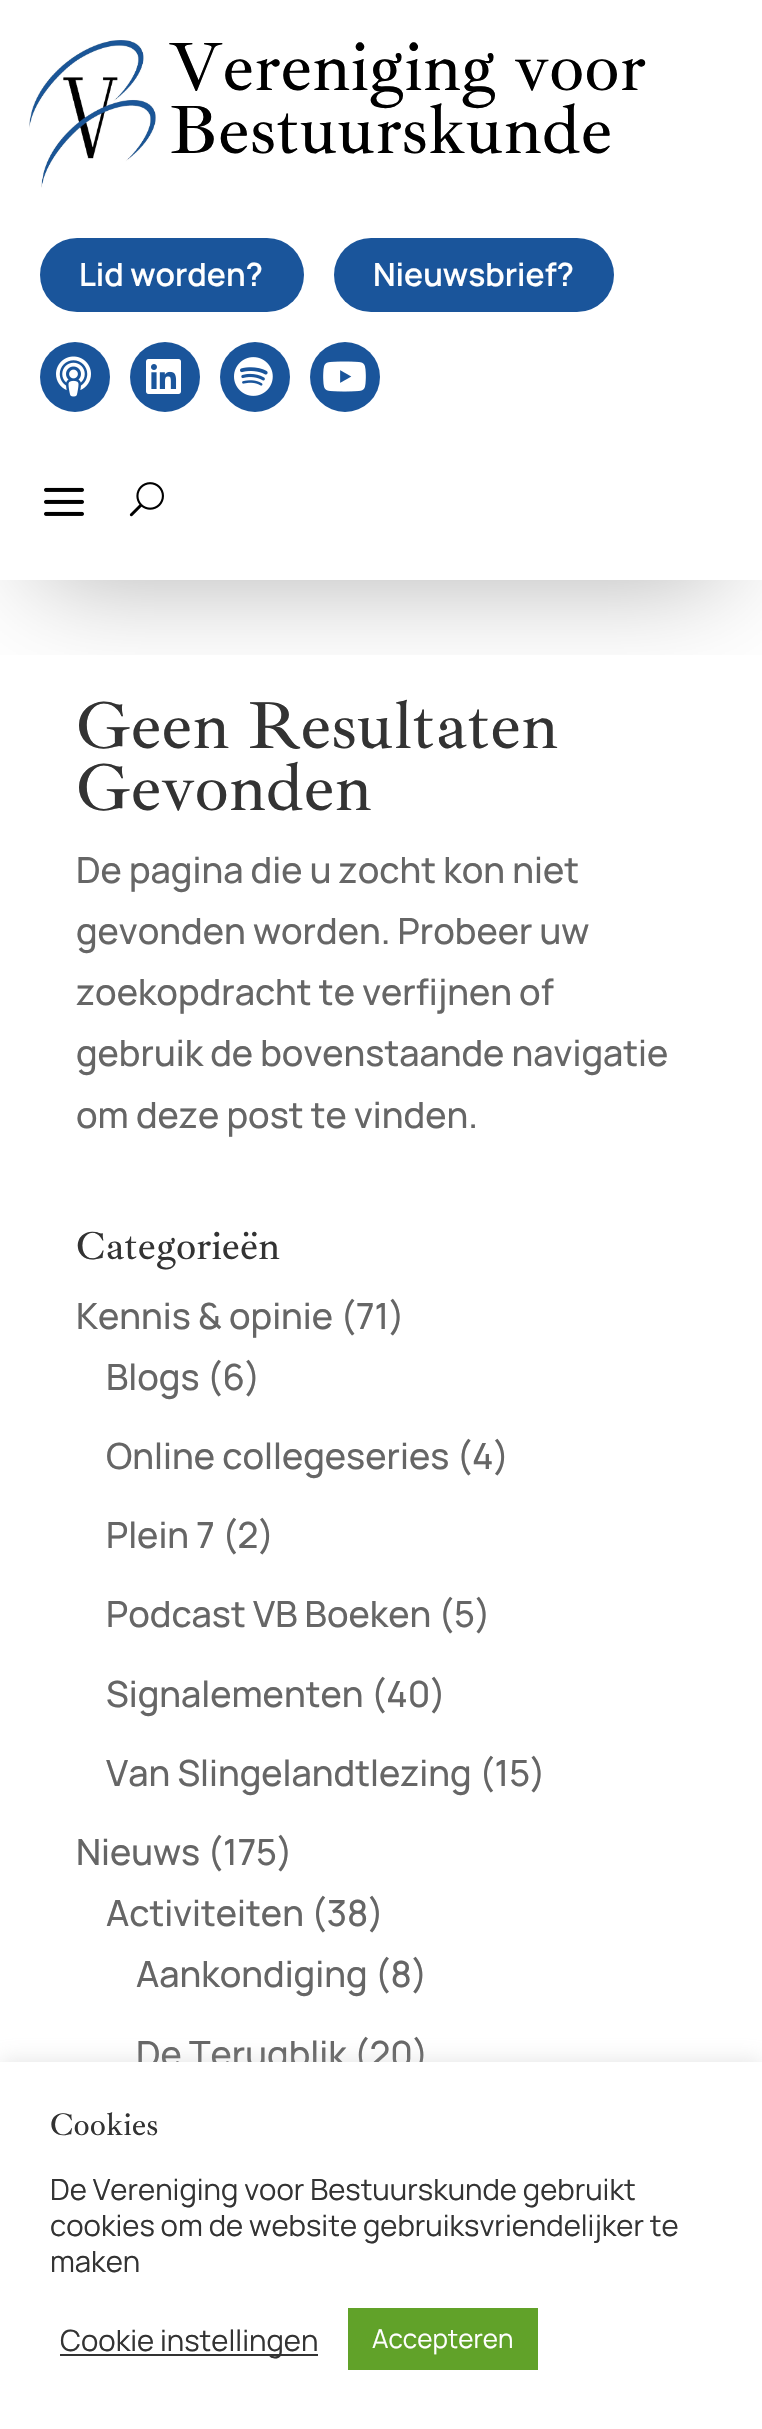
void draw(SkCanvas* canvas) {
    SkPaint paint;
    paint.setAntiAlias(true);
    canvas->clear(0xFFFFFFFF);
    canvas->save();
    canvas->clipRect(SkRect::MakeXYWH(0, 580, 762, 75));
    paint.setColor(0x4D000000);
    paint.setMaskFilter(SkMaskFilter::MakeBlur(kNormal_SkBlurStyle, 50));
    canvas->drawRect(SkRect::MakeXYWH(40, 80, 682, 500), paint);
    paint.setMaskFilter(nullptr);
    canvas->restore();
    canvas->drawImageRect(SkImages::DeferredFromEncodedData(SkData::MakeFromFileName("img1.png")), SkRect::MakeXYWH(29, 40, 127, 148), SkSamplingOptions());
    SkFont font1(fontMgr->matchFamilyStyle("Ibarra Real Nova", SkFontStyle(500, SkFontStyle::kNormal_Width, SkFontStyle::kUpright_Slant)), 70);
    font1.setSubpixel(true);
    paint.setColor(0xFF000000);
    canvas->drawString("Vereniging voor", 169, 90, font1, paint);
    canvas->drawString("Bestuurskunde", 169, 153, font1, paint);
    paint.setColor(0xFF1A559B);
    canvas->drawRoundRect(SkRect::MakeXYWH(40, 238, 264, 74), 37, 37, paint);
    SkFont font2(fontMgr->matchFamilyStyle("Manrope", SkFontStyle(600, SkFontStyle::kNormal_Width, SkFontStyle::kUpright_Slant)), 32);
    font2.setSubpixel(true);
    paint.setColor(0xFFFFFFFF);
    canvas->drawString("Lid worden?", 79, 286, font2, paint);
    paint.setColor(0xFF1A559B);
    canvas->drawRoundRect(SkRect::MakeXYWH(334, 238, 280, 74), 37, 37, paint);
    paint.setColor(0xFFFFFFFF);
    canvas->drawString("Nieuwsbrief?", 373, 286, font2, paint);
    paint.setColor(0xFF1A559B);
    canvas->drawCircle(75, 377, 35, paint);
    canvas->drawImageRect(SkImages::DeferredFromEncodedData(SkData::MakeFromFileName("img2.png")), SkRect::MakeXYWH(56, 356, 35, 41), SkSamplingOptions());
    canvas->drawCircle(165, 377, 35, paint);
    canvas->drawImageRect(SkImages::DeferredFromEncodedData(SkData::MakeFromFileName("img3.png")), SkRect::MakeXYWH(146, 359, 35, 35), SkSamplingOptions());
    canvas->drawCircle(255, 377, 35, paint);
    canvas->drawImageRect(SkImages::DeferredFromEncodedData(SkData::MakeFromFileName("img4.png")), SkRect::MakeXYWH(234, 357, 39, 39), SkSamplingOptions());
    canvas->drawCircle(345, 377, 35, paint);
    canvas->drawImageRect(SkImages::DeferredFromEncodedData(SkData::MakeFromFileName("img5.png")), SkRect::MakeXYWH(323, 361, 43, 31), SkSamplingOptions());
    canvas->drawImageRect(SkImages::DeferredFromEncodedData(SkData::MakeFromFileName("img6.png")), SkRect::MakeXYWH(44, 487, 40, 29), SkSamplingOptions());
    canvas->drawImageRect(SkImages::DeferredFromEncodedData(SkData::MakeFromFileName("img7.png")), SkRect::MakeXYWH(129, 482, 35, 35), SkSamplingOptions());
    SkFont font3(fontMgr->matchFamilyStyle("Ibarra Real Nova", SkFontStyle(500, SkFontStyle::kNormal_Width, SkFontStyle::kUpright_Slant)), 68);
    font3.setSubpixel(true);
    paint.setColor(0xFF333333);
    canvas->drawString("Geen Resultaten", 76, 748, font3, paint);
    canvas->drawString("Gevonden", 76, 810, font3, paint);
    SkFont font4(fontMgr->matchFamilyStyle("Manrope", SkFontStyle(500, SkFontStyle::kNormal_Width, SkFontStyle::kUpright_Slant)), 36);
    font4.setSubpixel(true);
    paint.setColor(0xFF666666);
    canvas->drawString("De pagina die u zocht kon niet", 76, 883, font4, paint);
    canvas->drawString("gevonden worden. Probeer uw", 76, 944, font4, paint);
    canvas->drawString("zoekopdracht te verfijnen of", 76, 1005, font4, paint);
    canvas->drawString("gebruik de bovenstaande navigatie", 76, 1066, font4, paint);
    canvas->drawString("om deze post te vinden.", 76, 1128, font4, paint);
    SkFont font5(fontMgr->matchFamilyStyle("Ibarra Real Nova", SkFontStyle(500, SkFontStyle::kNormal_Width, SkFontStyle::kUpright_Slant)), 40);
    font5.setSubpixel(true);
    paint.setColor(0xFF333333);
    canvas->drawString("Categorieën", 76, 1259, font5, paint);
    paint.setColor(0xFF666666);
    canvas->drawString("Kennis & opinie (71)", 76, 1329, font4, paint);
    canvas->drawString("Blogs (6)", 106, 1390, font4, paint);
    canvas->drawString("Online collegeseries (4)", 106, 1469, font4, paint);
    canvas->drawString("Plein 7 (2)", 106, 1548, font4, paint);
    canvas->drawString("Podcast VB Boeken (5)", 106, 1627, font4, paint);
    canvas->drawString("Signalementen (40)", 106, 1707, font4, paint);
    canvas->drawString("Van Slingelandtlezing (15)", 106, 1786, font4, paint);
    canvas->drawString("Nieuws (175)", 76, 1865, font4, paint);
    canvas->drawString("Activiteiten (38)", 106, 1926, font4, paint);
    canvas->drawString("Aankondiging (8)", 136, 1987, font4, paint);
    canvas->drawString("De Terugblik (20)", 136, 2067, font4, paint);
    paint.setColor(0x4DACABAB);
    paint.setMaskFilter(SkMaskFilter::MakeBlur(kNormal_SkBlurStyle, 10));
    canvas->drawRect(SkRect::MakeXYWH(0, 2060, 762, 368), paint);
    paint.setMaskFilter(nullptr);
    paint.setColor(0xFFFFFFFF);
    canvas->drawRect(SkRect::MakeXYWH(0, 2062, 762, 367), paint);
    SkFont font6(fontMgr->matchFamilyStyle("Ibarra Real Nova", SkFontStyle(500, SkFontStyle::kNormal_Width, SkFontStyle::kUpright_Slant)), 32);
    font6.setSubpixel(true);
    paint.setColor(0xFF333333);
    canvas->drawString("Cookies", 50, 2135, font6, paint);
    SkFont font7(fontMgr->matchFamilyStyle("Manrope", SkFontStyle::Normal()), 29.3f);
    font7.setSubpixel(true);
    canvas->drawString("De Vereniging voor Bestuurskunde gebruikt", 50, 2200, font7, paint);
    canvas->drawString("cookies om de website gebruiksvriendelijker te", 50, 2236, font7, paint);
    canvas->drawString("maken", 50, 2272, font7, paint);
    canvas->drawRect(SkRect::MakeXYWH(60, 2354, 258, 2), paint);
    canvas->drawString("Cookie instellingen", 60, 2351, font7, paint);
    paint.setColor(0xFF61A229);
    canvas->drawRect(SkRect::MakeXYWH(348, 2308, 190, 62), paint);
    SkFont font8(fontMgr->matchFamilyStyle("Manrope", SkFontStyle::Normal()), 26);
    font8.setSubpixel(true);
    paint.setColor(0xFFFFFFFF);
    canvas->drawString("Accepteren", 372, 2348, font8, paint);
}
